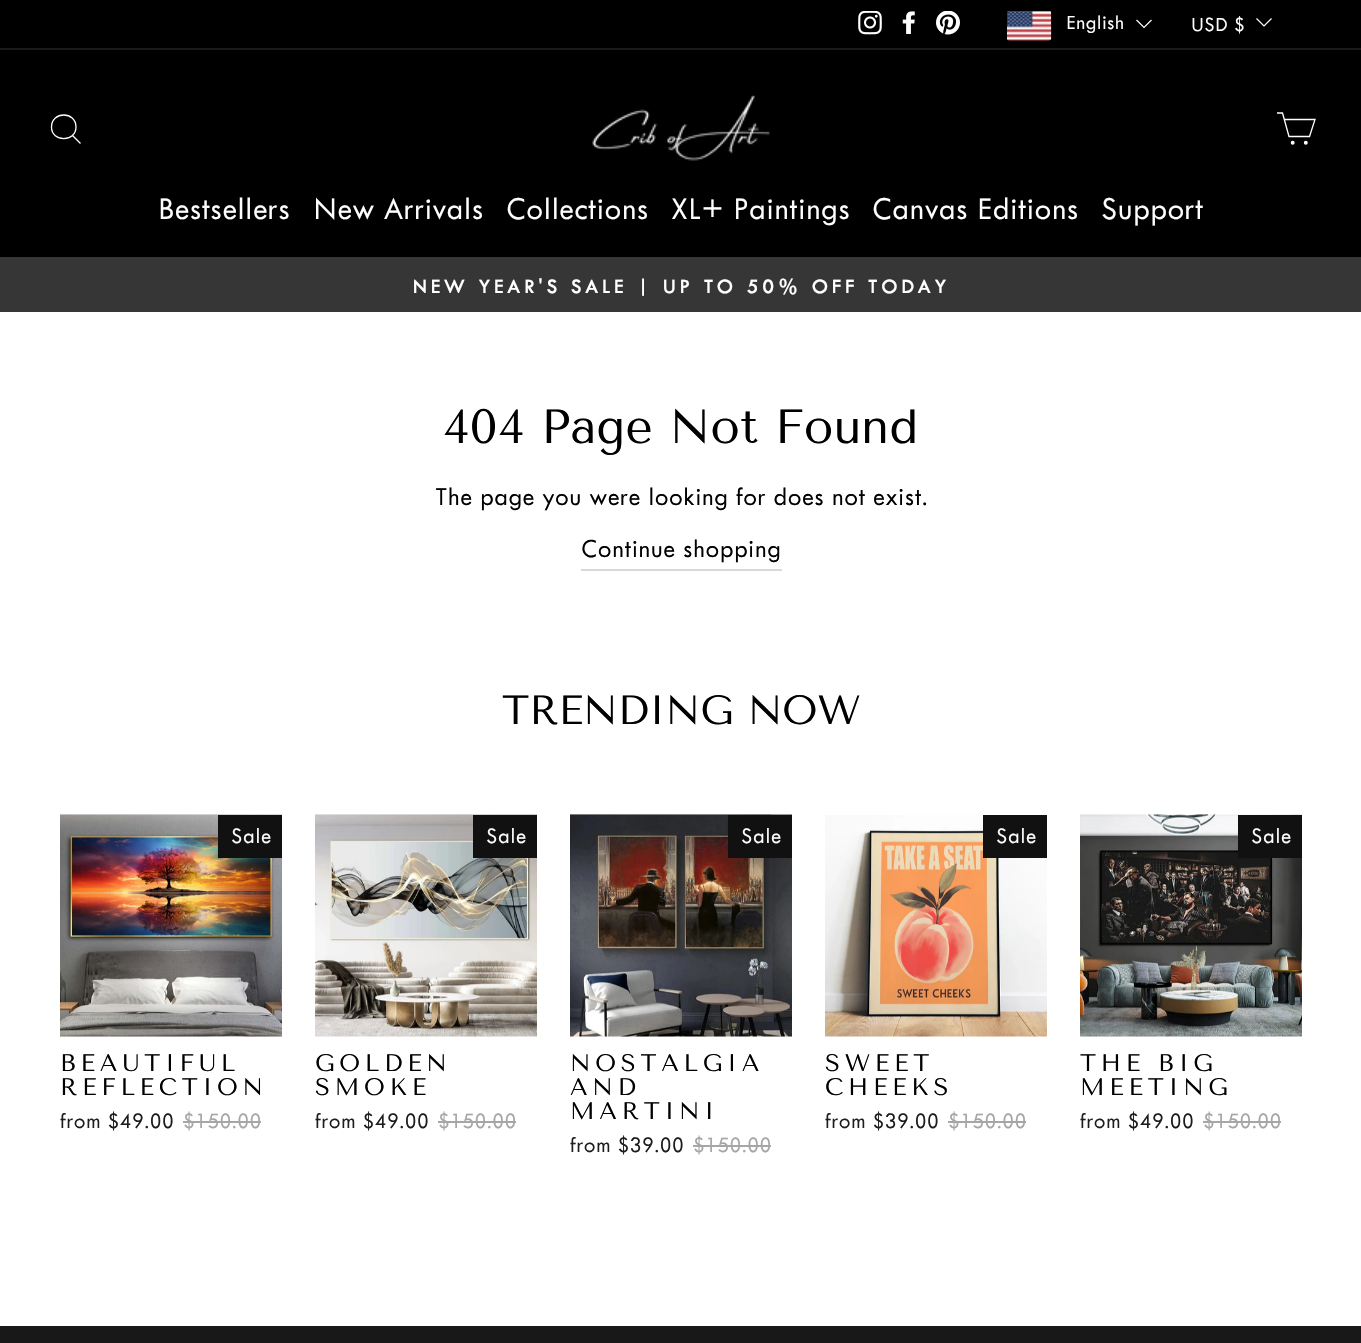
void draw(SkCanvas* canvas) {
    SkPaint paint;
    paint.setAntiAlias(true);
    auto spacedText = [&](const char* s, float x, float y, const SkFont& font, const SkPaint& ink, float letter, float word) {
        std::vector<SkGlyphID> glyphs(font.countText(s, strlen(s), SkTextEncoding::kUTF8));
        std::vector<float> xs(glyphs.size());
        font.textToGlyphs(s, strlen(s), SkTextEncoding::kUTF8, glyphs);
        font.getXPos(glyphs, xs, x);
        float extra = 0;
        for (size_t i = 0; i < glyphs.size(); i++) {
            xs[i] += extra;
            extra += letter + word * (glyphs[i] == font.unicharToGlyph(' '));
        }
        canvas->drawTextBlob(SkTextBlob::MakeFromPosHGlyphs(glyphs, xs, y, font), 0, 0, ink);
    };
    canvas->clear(0xFFFFFFFF);
    paint.setColor(0xFF000000);
    canvas->drawRect(SkRect::MakeXYWH(0, 0, 1361, 48), paint);
    canvas->drawImageRect(SkImages::DeferredFromEncodedData(SkData::MakeFromFileName("img1.png")), SkRect::MakeXYWH(858, 11, 24, 24), SkSamplingOptions());
    canvas->drawImageRect(SkImages::DeferredFromEncodedData(SkData::MakeFromFileName("img2.png")), SkRect::MakeXYWH(902, 11, 13, 23), SkSamplingOptions());
    canvas->drawImageRect(SkImages::DeferredFromEncodedData(SkData::MakeFromFileName("img3.png")), SkRect::MakeXYWH(936, 11, 24, 24), SkSamplingOptions());
    canvas->drawImageRect(SkImages::DeferredFromEncodedData(SkData::MakeFromFileName("img4.png")), SkRect::MakeXYWH(1007, 11, 45, 30), SkSamplingOptions());
    SkFont font1(fontMgr->matchFamilyStyle("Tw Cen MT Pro", SkFontStyle(500, SkFontStyle::kNormal_Width, SkFontStyle::kUpright_Slant)), 21);
    font1.setSubpixel(true);
    paint.setColor(0xFFFFFFFF);
    spacedText("English", 1066, 29, font1, paint, 0.5f, 0);
    paint.setStyle(SkPaint::kStroke_Style);
    paint.setStrokeWidth(1.2f);
    canvas->drawPath(SkPathBuilder().moveTo(1136.5f, 20).lineTo(1144, 27.5f).lineTo(1151.5f, 20).detach(), paint);
    paint.setStyle(SkPaint::kFill_Style);
    spacedText("USD $", 1191, 31, font1, paint, 0.5f, 0);
    paint.setStyle(SkPaint::kStroke_Style);
    canvas->drawPath(SkPathBuilder().moveTo(1256.5f, 18.5f).lineTo(1264, 26).lineTo(1271.5f, 18.5f).detach(), paint);
    paint.setStyle(SkPaint::kFill_Style);
    paint.setColor(0xFF000000);
    canvas->drawRect(SkRect::MakeXYWH(0, 50, 1361, 207), paint);
    paint.setColor(0xFF1A1A1A);
    canvas->drawRect(SkRect::MakeXYWH(0, 48, 1361, 2), paint);
    paint.setStyle(SkPaint::kStroke_Style);
    paint.setStrokeWidth(1.3f);
    paint.setColor(0xFFFFFFFF);
    canvas->drawPath(SkPathBuilder().moveTo(76, 127).cubicTo(76, 142.5f, 51.5f, 142.5f, 51.5f, 127).cubicTo(51.5f, 111, 76, 111, 76, 127).close().moveTo(80.5f, 143.5f).lineTo(72.5f, 135.5f).detach(), paint);
    canvas->drawImageRect(SkImages::DeferredFromEncodedData(SkData::MakeFromFileName("img5.png")), SkRect::MakeXYWH(592, 95, 178, 66), SkSamplingOptions());
    canvas->drawPath(SkPathBuilder().moveTo(1284, 119.5f).lineTo(1315, 119.5f).lineTo(1309.5f, 136.5f).lineTo(1289, 136.5f).lineTo(1282.5f, 113).lineTo(1277, 113).detach(), paint);
    paint.setStyle(SkPaint::kFill_Style);
    canvas->drawCircle(1292.7f, 142.8f, 1.3f, paint);
    paint.setStyle(SkPaint::kStroke_Style);
    canvas->drawCircle(1292.7f, 142.8f, 1.3f, paint);
    paint.setStyle(SkPaint::kFill_Style);
    canvas->drawCircle(1305.8f, 142.8f, 1.3f, paint);
    paint.setStyle(SkPaint::kStroke_Style);
    canvas->drawCircle(1305.8f, 142.8f, 1.3f, paint);
    SkFont font2(fontMgr->matchFamilyStyle("Tw Cen MT Pro", SkFontStyle(500, SkFontStyle::kNormal_Width, SkFontStyle::kUpright_Slant)), 33);
    font2.setSubpixel(true);
    paint.setStyle(SkPaint::kFill_Style);
    spacedText("Bestsellers", 158, 219, font2, paint, 0.7f, 0);
    spacedText("New Arrivals", 313, 219, font2, paint, 0.7f, 0);
    spacedText("Collections", 506, 219, font2, paint, 0.7f, 0);
    spacedText("XL+ Paintings", 671, 219, font2, paint, 0.7f, 0);
    spacedText("Canvas Editions", 872, 219, font2, paint, 0.7f, 0);
    spacedText("Support", 1101, 219, font2, paint, 0.7f, 0);
    paint.setColor(0xFF363636);
    canvas->drawRect(SkRect::MakeXYWH(0, 257, 1361, 55), paint);
    SkFont font3(fontMgr->matchFamilyStyle("Tw Cen MT Pro", SkFontStyle(600, SkFontStyle::kNormal_Width, SkFontStyle::kUpright_Slant)), 20.65f);
    font3.setSubpixel(true);
    paint.setColor(0xFFFFFFFF);
    spacedText("NEW YEAR'S SALE | UP TO 50% OFF TODAY", 413, 293, font3, paint, 4.15f, 0);
    SkFont font4(fontMgr->matchFamilyStyle("Tenor Sans", SkFontStyle::Normal()), 48);
    font4.setSubpixel(true);
    paint.setColor(0xFF000000);
    canvas->drawString("404 Page Not Found", 443, 443, font4, paint);
    SkFont font5(fontMgr->matchFamilyStyle("Tw Cen MT Pro", SkFontStyle(500, SkFontStyle::kNormal_Width, SkFontStyle::kUpright_Slant)), 27);
    font5.setSubpixel(true);
    spacedText("The page you were looking for does not exist.", 435, 505, font5, paint, 0.7f, 0);
    paint.setColor(0xFFD9D9D9);
    canvas->drawRect(SkRect::MakeXYWH(581, 569, 201, 2), paint);
    paint.setColor(0xFF000000);
    spacedText("Continue shopping", 581, 557, font5, paint, 0.7f, 0);
    SkFont font6(fontMgr->matchFamilyStyle("Tenor Sans", SkFontStyle::Normal()), 40.75f);
    font6.setSubpixel(true);
    canvas->drawString("TRENDING NOW", 502, 724, font6, paint);
    canvas->drawImageRect(SkImages::DeferredFromEncodedData(SkData::MakeFromFileName("img6.png")), SkRect::MakeXYWH(60, 814, 222, 223), SkSamplingOptions());
    paint.setColor(0xFF111111);
    canvas->drawRect(SkRect::MakeXYWH(218, 815, 64, 43), paint);
    SkFont font7(fontMgr->matchFamilyStyle("Tw Cen MT Pro", SkFontStyle(500, SkFontStyle::kNormal_Width, SkFontStyle::kUpright_Slant)), 23);
    font7.setSubpixel(true);
    paint.setColor(0xFFFFFFFF);
    spacedText("Sale", 231, 843, font7, paint, 0.7f, 0);
    SkFont font8(fontMgr->matchFamilyStyle("Tenor Sans", SkFontStyle::Normal()), 24);
    font8.setSubpixel(true);
    paint.setColor(0xFF000000);
    spacedText("BEAUTIFUL", 60, 1071, font8, paint, 4.75f, 0);
    spacedText("REFLECTION", 60, 1095, font8, paint, 4.75f, 0);
    paint.setColor(0xFF1C1D1D);
    spacedText("from $49.00", 60, 1128, font7, paint, 0.7f, 0);
    paint.setColor(0xFFA7A6A6);
    spacedText("$150.00", 183, 1128, font7, paint, 0.7f, 0);
    canvas->drawRect(SkRect::MakeXYWH(183, 1121, 78, 2), paint);
    canvas->drawImageRect(SkImages::DeferredFromEncodedData(SkData::MakeFromFileName("img7.png")), SkRect::MakeXYWH(315, 814, 222, 223), SkSamplingOptions());
    paint.setColor(0xFF111111);
    canvas->drawRect(SkRect::MakeXYWH(473, 815, 64, 43), paint);
    paint.setColor(0xFFFFFFFF);
    spacedText("Sale", 486, 843, font7, paint, 0.7f, 0);
    paint.setColor(0xFF000000);
    spacedText("GOLDEN", 315, 1071, font8, paint, 4.75f, 0);
    spacedText("SMOKE", 315, 1095, font8, paint, 4.75f, 0);
    paint.setColor(0xFF1C1D1D);
    spacedText("from $49.00", 315, 1128, font7, paint, 0.7f, 0);
    paint.setColor(0xFFA7A6A6);
    spacedText("$150.00", 438, 1128, font7, paint, 0.7f, 0);
    canvas->drawRect(SkRect::MakeXYWH(438, 1121, 78, 2), paint);
    canvas->drawImageRect(SkImages::DeferredFromEncodedData(SkData::MakeFromFileName("img8.png")), SkRect::MakeXYWH(570, 814, 222, 223), SkSamplingOptions());
    paint.setColor(0xFF111111);
    canvas->drawRect(SkRect::MakeXYWH(728, 815, 64, 43), paint);
    paint.setColor(0xFFFFFFFF);
    spacedText("Sale", 741, 843, font7, paint, 0.7f, 0);
    paint.setColor(0xFF000000);
    spacedText("NOSTALGIA", 570, 1071, font8, paint, 4.75f, 0);
    spacedText("AND", 570, 1095, font8, paint, 4.75f, 0);
    spacedText("MARTINI", 570, 1119, font8, paint, 4.75f, 0);
    paint.setColor(0xFF1C1D1D);
    spacedText("from $39.00", 570, 1152, font7, paint, 0.7f, 0);
    paint.setColor(0xFFA7A6A6);
    spacedText("$150.00", 693, 1152, font7, paint, 0.7f, 0);
    canvas->drawRect(SkRect::MakeXYWH(693, 1145, 78, 2), paint);
    canvas->drawImageRect(SkImages::DeferredFromEncodedData(SkData::MakeFromFileName("img9.png")), SkRect::MakeXYWH(825, 815, 222, 222), SkSamplingOptions());
    paint.setColor(0xFF111111);
    canvas->drawRect(SkRect::MakeXYWH(983, 815, 64, 43), paint);
    paint.setColor(0xFFFFFFFF);
    spacedText("Sale", 996, 843, font7, paint, 0.7f, 0);
    paint.setColor(0xFF000000);
    spacedText("SWEET", 825, 1071, font8, paint, 4.75f, 0);
    spacedText("CHEEKS", 825, 1095, font8, paint, 4.75f, 0);
    paint.setColor(0xFF1C1D1D);
    spacedText("from $39.00", 825, 1128, font7, paint, 0.7f, 0);
    paint.setColor(0xFFA7A6A6);
    spacedText("$150.00", 948, 1128, font7, paint, 0.7f, 0);
    canvas->drawRect(SkRect::MakeXYWH(948, 1121, 78, 2), paint);
    canvas->drawImageRect(SkImages::DeferredFromEncodedData(SkData::MakeFromFileName("img10.png")), SkRect::MakeXYWH(1080, 814, 222, 223), SkSamplingOptions());
    paint.setColor(0xFF111111);
    canvas->drawRect(SkRect::MakeXYWH(1238, 815, 64, 43), paint);
    paint.setColor(0xFFFFFFFF);
    spacedText("Sale", 1251, 843, font7, paint, 0.7f, 0);
    paint.setColor(0xFF000000);
    spacedText("THE BIG", 1080, 1071, font8, paint, 4.75f, 0);
    spacedText("MEETING", 1080, 1095, font8, paint, 4.75f, 0);
    paint.setColor(0xFF1C1D1D);
    spacedText("from $49.00", 1080, 1128, font7, paint, 0.7f, 0);
    paint.setColor(0xFFA7A6A6);
    spacedText("$150.00", 1203, 1128, font7, paint, 0.7f, 0);
    canvas->drawRect(SkRect::MakeXYWH(1203, 1121, 78, 2), paint);
    paint.setColor(0xFF181818);
    canvas->drawRect(SkRect::MakeXYWH(0, 1326, 1361, 17), paint);
}
